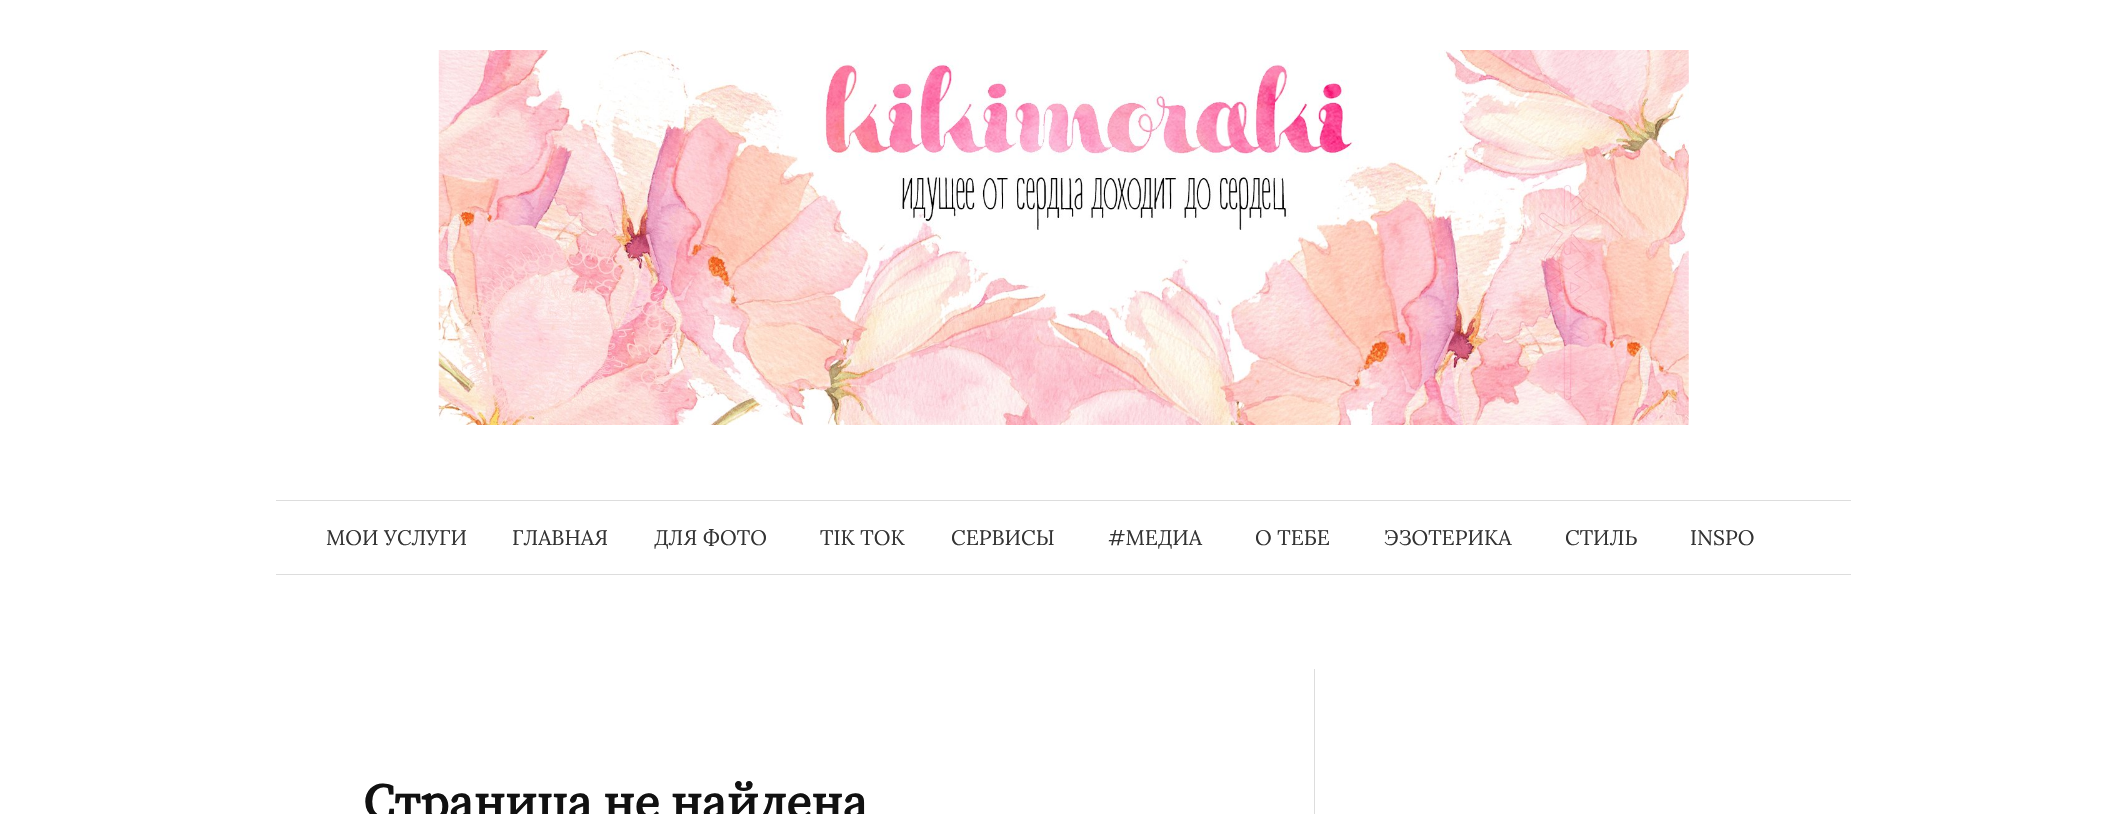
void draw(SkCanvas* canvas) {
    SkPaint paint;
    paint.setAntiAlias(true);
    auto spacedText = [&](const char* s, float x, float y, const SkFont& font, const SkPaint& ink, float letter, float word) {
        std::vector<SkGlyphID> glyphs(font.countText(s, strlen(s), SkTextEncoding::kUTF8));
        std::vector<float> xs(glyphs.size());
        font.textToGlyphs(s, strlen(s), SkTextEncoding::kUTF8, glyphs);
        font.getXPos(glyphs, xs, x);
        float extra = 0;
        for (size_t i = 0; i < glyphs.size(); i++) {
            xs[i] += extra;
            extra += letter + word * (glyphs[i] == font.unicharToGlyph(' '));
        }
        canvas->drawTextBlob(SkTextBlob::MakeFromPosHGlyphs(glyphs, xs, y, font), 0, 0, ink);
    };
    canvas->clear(0xFFFFFFFF);
    canvas->drawImageRect(SkImages::DeferredFromEncodedData(SkData::MakeFromFileName("img1.png")), SkRect::MakeXYWH(438, 50, 1251, 375), SkSamplingOptions());
    paint.setColor(0xFFDDDDDD);
    canvas->drawRect(SkRect::MakeXYWH(276, 500, 1575, 1), paint);
    canvas->drawRect(SkRect::MakeXYWH(276, 574, 1575, 1), paint);
    SkFont font1(fontMgr->matchFamilyStyle("Lora", SkFontStyle::Normal()), 21);
    font1.setSubpixel(true);
    paint.setColor(0xFF333333);
    canvas->drawString("МОИ УСЛУГИ", 326, 545, font1, paint);
    canvas->drawString("ГЛАВНАЯ", 512, 545, font1, paint);
    canvas->drawString("ДЛЯ ФОТО", 654, 545, font1, paint);
    canvas->drawString("TIK TOK", 820, 545, font1, paint);
    canvas->drawString("СЕРВИСЫ", 951, 545, font1, paint);
    canvas->drawString("#МЕДИА", 1108, 545, font1, paint);
    canvas->drawString("О ТЕБЕ", 1255, 545, font1, paint);
    canvas->drawString("ЭЗОТЕРИКА", 1384, 545, font1, paint);
    canvas->drawString("СТИЛЬ", 1565, 545, font1, paint);
    canvas->drawString("INSPO", 1690, 545, font1, paint);
    paint.setColor(0xFFDDDDDD);
    canvas->drawRect(SkRect::MakeXYWH(1314, 669, 1, 145), paint);
    SkFont font2(fontMgr->matchFamilyStyle("Source Serif Pro", SkFontStyle::Bold()), 50);
    font2.setSubpixel(true);
    paint.setColor(0xFF111111);
    spacedText("Страница не найдена", 363, 819, font2, paint, -0.5f, 0);
}
